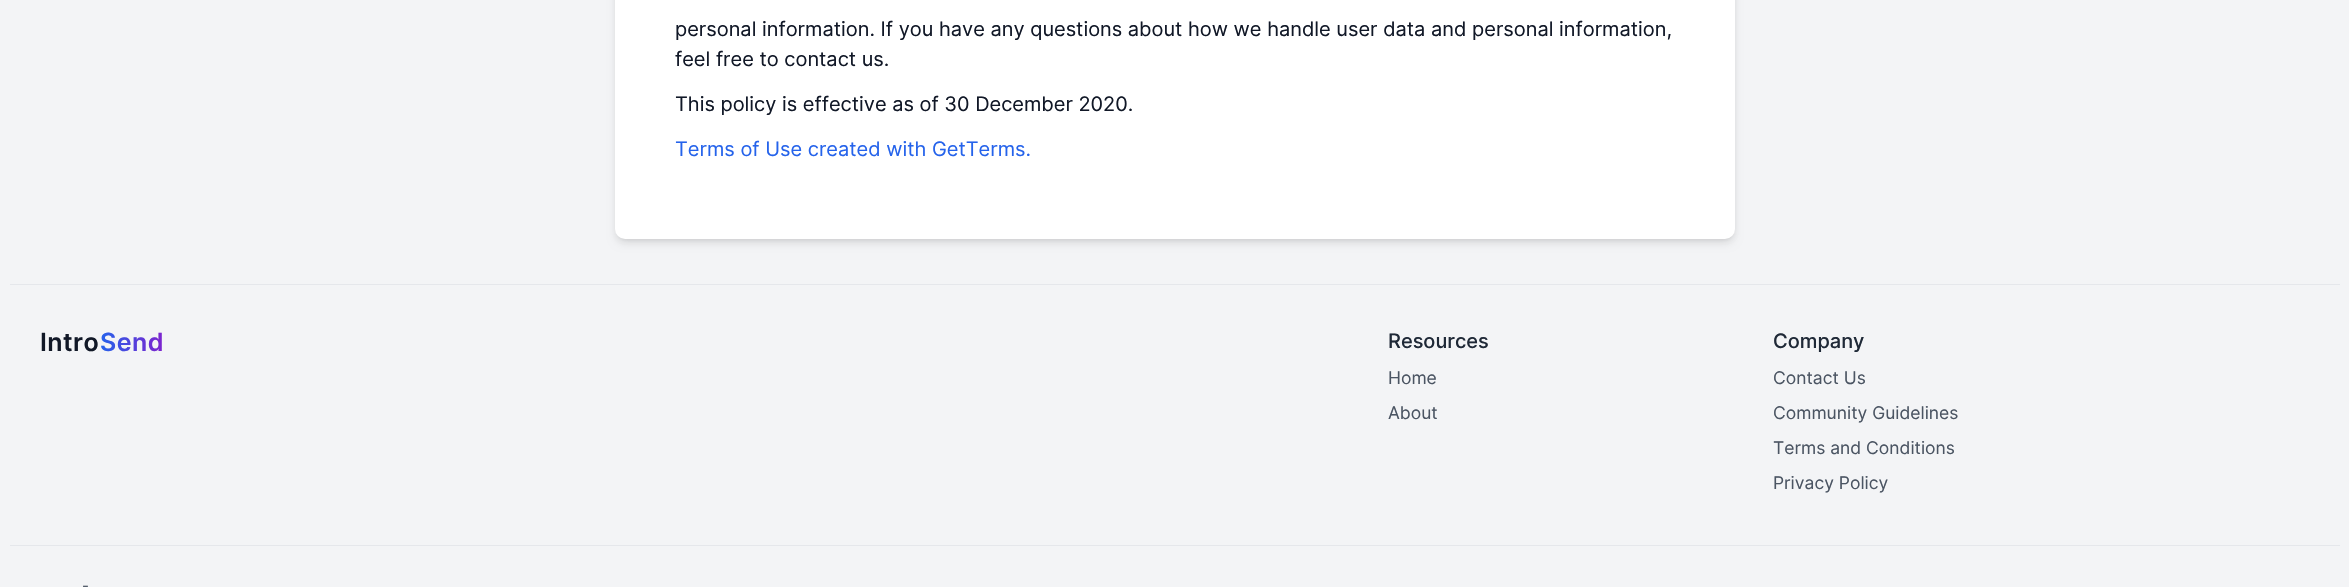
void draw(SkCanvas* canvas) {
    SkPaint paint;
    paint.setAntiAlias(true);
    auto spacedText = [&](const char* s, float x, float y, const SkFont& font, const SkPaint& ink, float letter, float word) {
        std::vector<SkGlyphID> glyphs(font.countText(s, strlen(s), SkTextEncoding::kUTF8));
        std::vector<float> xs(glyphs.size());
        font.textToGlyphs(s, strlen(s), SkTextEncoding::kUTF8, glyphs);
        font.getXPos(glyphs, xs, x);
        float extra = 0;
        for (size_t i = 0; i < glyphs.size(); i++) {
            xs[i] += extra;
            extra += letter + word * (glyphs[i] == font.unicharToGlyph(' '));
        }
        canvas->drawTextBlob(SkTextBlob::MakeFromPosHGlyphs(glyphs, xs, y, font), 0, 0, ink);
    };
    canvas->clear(0xFFF3F4F6);
    paint.setColor(0x1A000000);
    paint.setMaskFilter(SkMaskFilter::MakeBlur(kNormal_SkBlurStyle, 2.5f));
    canvas->drawRoundRect(SkRect::MakeXYWH(618, -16, 1115, 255), 8, 8, paint);
    paint.setMaskFilter(nullptr);
    paint.setMaskFilter(SkMaskFilter::MakeBlur(kNormal_SkBlurStyle, 4));
    canvas->drawRoundRect(SkRect::MakeXYWH(616, -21, 1118, 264), 9, 9, paint);
    paint.setMaskFilter(nullptr);
    paint.setColor(0xFFFFFFFF);
    canvas->drawRoundRect(SkRect::MakeXYWH(615, -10, 1120, 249), 10, 10, paint);
    SkFont font1(fontMgr->matchFamilyStyle("Inter", SkFontStyle::Normal()), 20);
    font1.setSubpixel(true);
    paint.setColor(0xFF111827);
    canvas->drawString("personal information. If you have any questions about how we handle user data and personal information,", 675, 36, font1, paint);
    canvas->drawString("feel free to contact us.", 675, 66, font1, paint);
    canvas->drawString("This policy is effective as of 30 December 2020.", 675, 111, font1, paint);
    paint.setColor(0xFF2563EB);
    canvas->drawString("Terms of Use created with GetTerms.", 675, 156, font1, paint);
    paint.setColor(0xFFE5E7EB);
    canvas->drawRect(SkRect::MakeXYWH(10, 284, 2330, 1), paint);
    SkFont font2(fontMgr->matchFamilyStyle("Inter", SkFontStyle(600, SkFontStyle::kNormal_Width, SkFontStyle::kUpright_Slant)), 25);
    font2.setSubpixel(true);
    paint.setColor(0xFF111827);
    spacedText("Intro", 40, 351, font2, paint, 0.5f, 0);
    {
        const SkColor colors[] = {0xFF2563EB, 0xFF7E22CE};
        const float stops[] = {0, 1};
        const SkPoint ends[] = {{100, 343}, {164, 343}};
        paint.setShader(SkGradientShader::MakeLinear(ends, colors, stops, 2, SkTileMode::kClamp));
        paint.setAlpha(255);
    }
    spacedText("Send", 100, 351, font2, paint, 0.5f, 0);
    SkFont font3(fontMgr->matchFamilyStyle("Inter", SkFontStyle(500, SkFontStyle::kNormal_Width, SkFontStyle::kUpright_Slant)), 20);
    font3.setSubpixel(true);
    paint.setShader(nullptr);
    paint.setColor(0xFF1F2937);
    canvas->drawString("Resources", 1388, 348, font3, paint);
    SkFont font4(fontMgr->matchFamilyStyle("Inter", SkFontStyle::Normal()), 17.5f);
    font4.setSubpixel(true);
    paint.setColor(0xFF4B5563);
    canvas->drawString("Home", 1388, 384, font4, paint);
    canvas->drawString("About", 1388, 419, font4, paint);
    paint.setColor(0xFF1F2937);
    canvas->drawString("Company", 1773, 348, font3, paint);
    paint.setColor(0xFF4B5563);
    canvas->drawString("Contact Us", 1773, 384, font4, paint);
    canvas->drawString("Community Guidelines", 1773, 419, font4, paint);
    canvas->drawString("Terms and Conditions", 1773, 454, font4, paint);
    canvas->drawString("Privacy Policy", 1773, 489, font4, paint);
    paint.setColor(0xFFE5E7EB);
    canvas->drawRect(SkRect::MakeXYWH(10, 545, 2330, 1), paint);
    SkFont font5(fontMgr->matchFamilyStyle("Inter", SkFontStyle::Normal()), 15);
    font5.setSubpixel(true);
    paint.setColor(0xFF4B5563);
    canvas->drawString("-", 82, 591, font5, paint);
}
